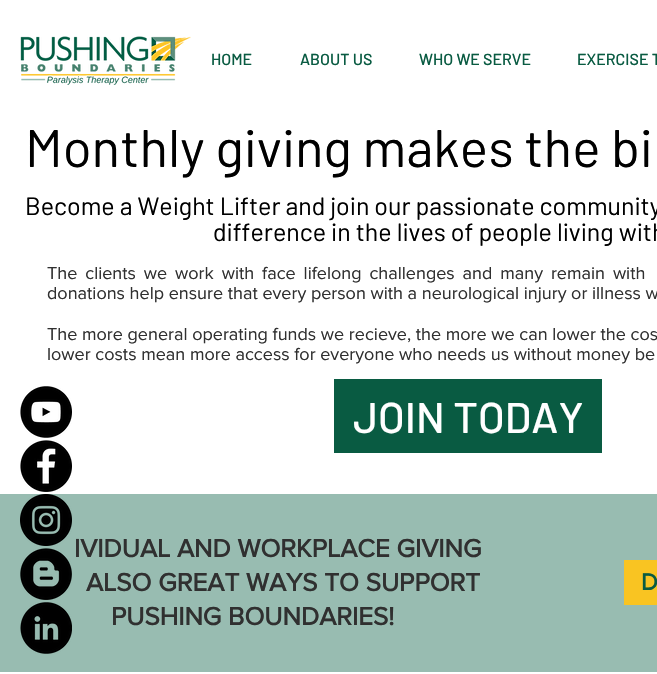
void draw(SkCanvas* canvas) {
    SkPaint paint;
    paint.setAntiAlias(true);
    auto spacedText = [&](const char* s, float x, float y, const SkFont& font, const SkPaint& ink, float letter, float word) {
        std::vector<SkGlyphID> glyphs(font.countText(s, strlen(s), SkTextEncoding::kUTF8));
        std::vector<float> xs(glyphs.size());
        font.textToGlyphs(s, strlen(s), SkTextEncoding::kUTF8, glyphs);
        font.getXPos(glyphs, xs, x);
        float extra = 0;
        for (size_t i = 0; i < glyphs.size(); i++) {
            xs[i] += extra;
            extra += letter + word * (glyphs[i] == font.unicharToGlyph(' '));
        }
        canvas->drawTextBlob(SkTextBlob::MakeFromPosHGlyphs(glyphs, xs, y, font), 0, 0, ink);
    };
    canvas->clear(0xFFFFFFFF);
    canvas->drawImageRect(SkImages::DeferredFromEncodedData(SkData::MakeFromFileName("img1.png")), SkRect::MakeXYWH(20, 36, 171, 49), SkSamplingOptions());
    SkFont font1(fontMgr->matchFamilyStyle("Barlow", SkFontStyle(500, SkFontStyle::kNormal_Width, SkFontStyle::kUpright_Slant)), 16);
    font1.setSubpixel(true);
    paint.setColor(0xFF095B42);
    canvas->drawString("HOME", 211, 65, font1, paint);
    canvas->drawString("ABOUT US", 300, 65, font1, paint);
    canvas->drawString("WHO WE SERVE", 419, 65, font1, paint);
    canvas->drawString("EXERCISE T", 577, 65, font1, paint);
    SkFont font2(fontMgr->matchFamilyStyle("Barlow", SkFontStyle::Normal()), 53);
    font2.setSubpixel(true);
    paint.setColor(0xFF000000);
    canvas->drawString("Monthly giving makes the bi", 25, 167, font2, paint);
    SkFont font3(fontMgr->matchFamilyStyle("Barlow", SkFontStyle::Normal()), 25);
    font3.setSubpixel(true);
    canvas->drawString("Become a Weight Lifter and join our passionate community", 25, 215, font3, paint);
    canvas->drawString("difference in the lives of people living with", 213, 241, font3, paint);
    SkFont font4(fontMgr->matchFamilyStyle("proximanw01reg", SkFontStyle::Normal()), 18);
    font4.setSubpixel(true);
    paint.setColor(0xFF303030);
    spacedText("The clients we work with face lifelong challenges and many remain with", 47, 279, font4, paint, 0, 3.25f);
    canvas->drawString("donations help ensure that every person with a neurological injury or illness w", 47, 299, font4, paint);
    canvas->drawString("The more general operating funds we recieve, the more we can lower the cos", 47, 340, font4, paint);
    canvas->drawString("lower costs mean more access for everyone who needs us without money be", 47, 360, font4, paint);
    paint.setColor(0xFF095B42);
    canvas->drawRect(SkRect::MakeXYWH(334, 379, 268, 74), paint);
    SkFont font5(fontMgr->matchFamilyStyle("Barlow", SkFontStyle(500, SkFontStyle::kNormal_Width, SkFontStyle::kUpright_Slant)), 43);
    font5.setSubpixel(true);
    paint.setColor(0xFFFFFFFF);
    canvas->drawString("JOIN TODAY", 353, 433, font5, paint);
    paint.setColor(0xFF98BCB1);
    canvas->drawRect(SkRect::MakeXYWH(0, 494, 657, 178), paint);
    SkFont font6(fontMgr->matchFamilyStyle("proximanw01reg", SkFontStyle::Bold()), 26);
    font6.setSubpixel(true);
    paint.setColor(0xFF303030);
    canvas->drawString("IVIDUAL AND WORKPLACE GIVING", 74, 557, font6, paint);
    canvas->drawString("ALSO GREAT WAYS TO SUPPORT", 86, 591, font6, paint);
    canvas->drawString("PUSHING BOUNDARIES!", 111, 625, font6, paint);
    paint.setColor(0xFFF9C422);
    canvas->drawRect(SkRect::MakeXYWH(624, 560, 33, 45), paint);
    SkFont font7(fontMgr->matchFamilyStyle("proximanw01reg", SkFontStyle::Bold()), 24);
    font7.setSubpixel(true);
    paint.setColor(0xFF095B42);
    canvas->drawString("D", 641, 590, font7, paint);
    canvas->drawImageRect(SkImages::DeferredFromEncodedData(SkData::MakeFromFileName("img2.png")), SkRect::MakeXYWH(20, 386, 52, 52), SkSamplingOptions());
    canvas->drawImageRect(SkImages::DeferredFromEncodedData(SkData::MakeFromFileName("img3.png")), SkRect::MakeXYWH(20, 440, 52, 52), SkSamplingOptions());
    canvas->drawImageRect(SkImages::DeferredFromEncodedData(SkData::MakeFromFileName("img4.png")), SkRect::MakeXYWH(20, 494, 52, 52), SkSamplingOptions());
    canvas->drawImageRect(SkImages::DeferredFromEncodedData(SkData::MakeFromFileName("img5.png")), SkRect::MakeXYWH(20, 548, 52, 52), SkSamplingOptions());
    canvas->drawImageRect(SkImages::DeferredFromEncodedData(SkData::MakeFromFileName("img6.png")), SkRect::MakeXYWH(20, 602, 52, 52), SkSamplingOptions());
}
